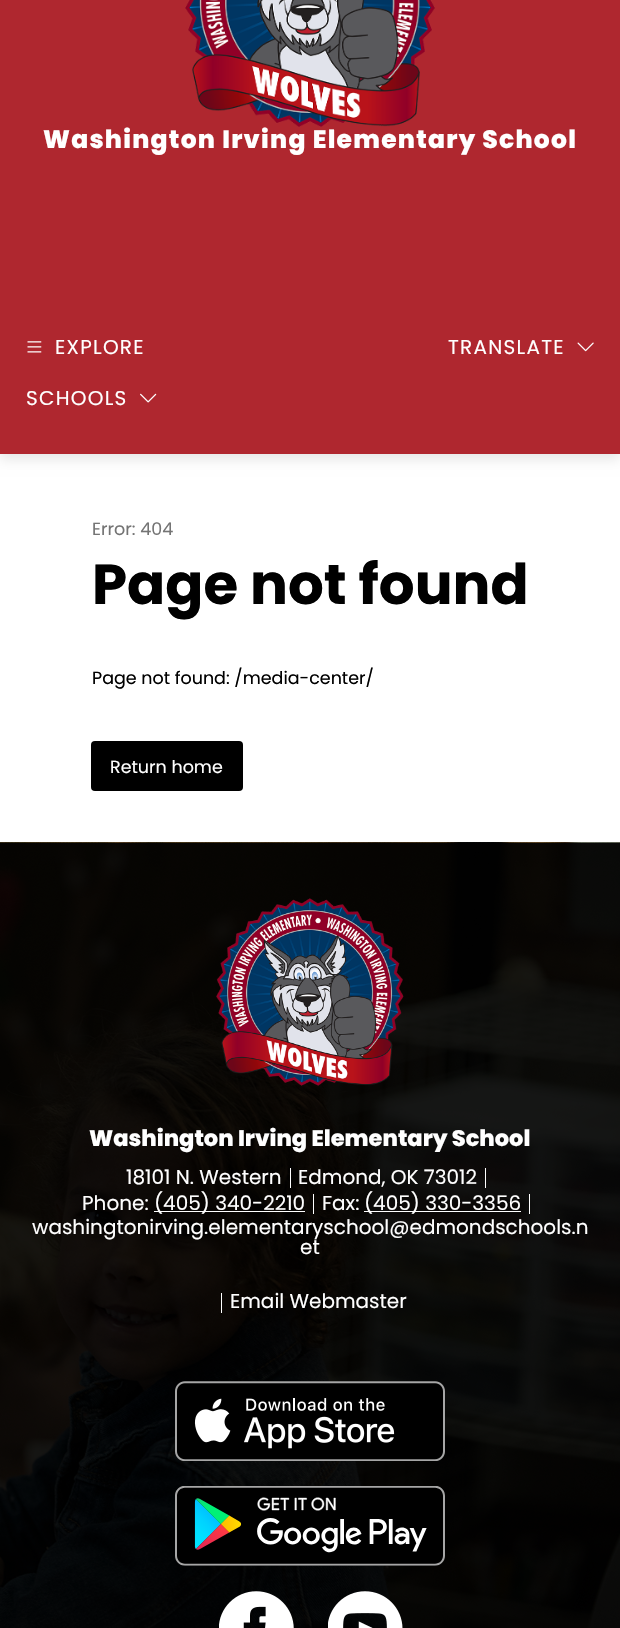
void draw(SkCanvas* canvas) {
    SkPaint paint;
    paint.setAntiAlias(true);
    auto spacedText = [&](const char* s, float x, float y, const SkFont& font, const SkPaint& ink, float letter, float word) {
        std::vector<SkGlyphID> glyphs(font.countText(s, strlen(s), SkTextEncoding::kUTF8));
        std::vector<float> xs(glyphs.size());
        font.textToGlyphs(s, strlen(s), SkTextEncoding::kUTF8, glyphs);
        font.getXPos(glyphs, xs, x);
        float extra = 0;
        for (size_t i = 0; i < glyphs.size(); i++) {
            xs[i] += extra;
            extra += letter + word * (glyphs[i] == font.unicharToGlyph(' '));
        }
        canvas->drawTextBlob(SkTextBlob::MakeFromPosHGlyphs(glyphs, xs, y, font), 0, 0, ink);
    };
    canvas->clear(0xFFFFFFFF);
    paint.setColor(0x1A000000);
    paint.setMaskFilter(SkMaskFilter::MakeBlur(kNormal_SkBlurStyle, 6));
    canvas->drawRect(SkRect::MakeXYWH(0, -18, 620, 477), paint);
    paint.setMaskFilter(nullptr);
    paint.setColor(0xFFAF272F);
    canvas->drawRect(SkRect::MakeXYWH(0, 0, 620, 454), paint);
    canvas->drawImageRect(SkImages::DeferredFromEncodedData(SkData::MakeFromFileName("img1.png")), SkRect::MakeXYWH(185, 0, 250, 127), SkSamplingOptions());
    SkFont font1(fontMgr->matchFamilyStyle("Poppins", SkFontStyle(800, SkFontStyle::kNormal_Width, SkFontStyle::kUpright_Slant)), 25);
    font1.setSubpixel(true);
    paint.setColor(0xFFFFFFFF);
    spacedText("Washington Irving Elementary School", 43, 148, font1, paint, 1.25f, 0);
    canvas->drawImageRect(SkImages::DeferredFromEncodedData(SkData::MakeFromFileName("img2.png")), SkRect::MakeXYWH(27, 341, 15, 12), SkSamplingOptions());
    SkFont font2(fontMgr->matchFamilyStyle("Poppins", SkFontStyle::Normal()), 20);
    font2.setSubpixel(true);
    spacedText("EXPLORE", 55, 354, font2, paint, 1.25f, 0);
    spacedText("SCHOOLS", 26, 405, font2, paint, 1.25f, 0);
    canvas->drawImageRect(SkImages::DeferredFromEncodedData(SkData::MakeFromFileName("img3.png")), SkRect::MakeXYWH(140, 393, 17, 10), SkSamplingOptions());
    spacedText("TRANSLATE", 448, 354, font2, paint, 1.25f, 0);
    canvas->drawImageRect(SkImages::DeferredFromEncodedData(SkData::MakeFromFileName("img4.png")), SkRect::MakeXYWH(577, 342, 17, 10), SkSamplingOptions());
    SkFont font3(fontMgr->matchFamilyStyle("Poppins", SkFontStyle::Normal()), 17.5f);
    font3.setSubpixel(true);
    paint.setColor(0xFF747474);
    canvas->drawString("Error: 404", 92, 535, font3, paint);
    SkFont font4(fontMgr->matchFamilyStyle("Poppins", SkFontStyle::Bold()), 56.25f);
    font4.setSubpixel(true);
    paint.setColor(0xFF000000);
    canvas->drawString("Page not found", 92, 604, font4, paint);
    canvas->drawString("Page not found: /media-center/", 92, 684, font3, paint);
    canvas->drawRoundRect(SkRect::MakeXYWH(91, 741, 152, 50), 4, 4, paint);
    paint.setColor(0xFFFFFFFF);
    canvas->drawString("Return home", 110, 773, font3, paint);
    canvas->drawImageRect(SkImages::DeferredFromEncodedData(SkData::MakeFromFileName("img5.png")), SkRect::MakeXYWH(0, 842, 620, 786), SkSamplingOptions());
    canvas->drawImageRect(SkImages::DeferredFromEncodedData(SkData::MakeFromFileName("img6.png")), SkRect::MakeXYWH(216, 898, 188, 188), SkSamplingOptions());
    SkFont font5(fontMgr->matchFamilyStyle("Poppins", SkFontStyle(800, SkFontStyle::kNormal_Width, SkFontStyle::kUpright_Slant)), 22.5f);
    font5.setSubpixel(true);
    canvas->drawString("Washington Irving Elementary School", 89, 1146, font5, paint);
    canvas->drawRect(SkRect::MakeXYWH(290, 1168, 1, 20), paint);
    canvas->drawString("18101 N. Western", 126, 1184, font2, paint);
    canvas->drawRect(SkRect::MakeXYWH(485, 1168, 1, 20), paint);
    canvas->drawString("Edmond, OK 73012", 298, 1184, font2, paint);
    canvas->drawRect(SkRect::MakeXYWH(313, 1194, 1, 20), paint);
    canvas->drawString("Phone:", 82, 1210, font2, paint);
    canvas->drawRect(SkRect::MakeXYWH(154, 1211, 151, 1), paint);
    canvas->drawString("(405) 340-2210", 154, 1210, font2, paint);
    canvas->drawRect(SkRect::MakeXYWH(529, 1194, 1, 20), paint);
    canvas->drawString("Fax:", 322, 1210, font2, paint);
    canvas->drawRect(SkRect::MakeXYWH(364, 1211, 157, 1), paint);
    canvas->drawString("(405) 330-3356", 364, 1210, font2, paint);
    canvas->drawString("washingtonirving.elementaryschool@edmondschools.n", 32, 1234, font2, paint);
    canvas->drawString("et", 300, 1254, font2, paint);
    canvas->drawRect(SkRect::MakeXYWH(221, 1293, 1, 20), paint);
    canvas->drawString("Email Webmaster", 230, 1308, font2, paint);
    canvas->drawImageRect(SkImages::DeferredFromEncodedData(SkData::MakeFromFileName("img7.png")), SkRect::MakeXYWH(175, 1381, 270, 80), SkSamplingOptions());
    canvas->drawImageRect(SkImages::DeferredFromEncodedData(SkData::MakeFromFileName("img8.png")), SkRect::MakeXYWH(175, 1486, 270, 80), SkSamplingOptions());
    canvas->drawImageRect(SkImages::DeferredFromEncodedData(SkData::MakeFromFileName("img9.png")), SkRect::MakeXYWH(219, 1591, 75, 37), SkSamplingOptions());
    canvas->drawImageRect(SkImages::DeferredFromEncodedData(SkData::MakeFromFileName("img10.png")), SkRect::MakeXYWH(328, 1591, 75, 37), SkSamplingOptions());
}
